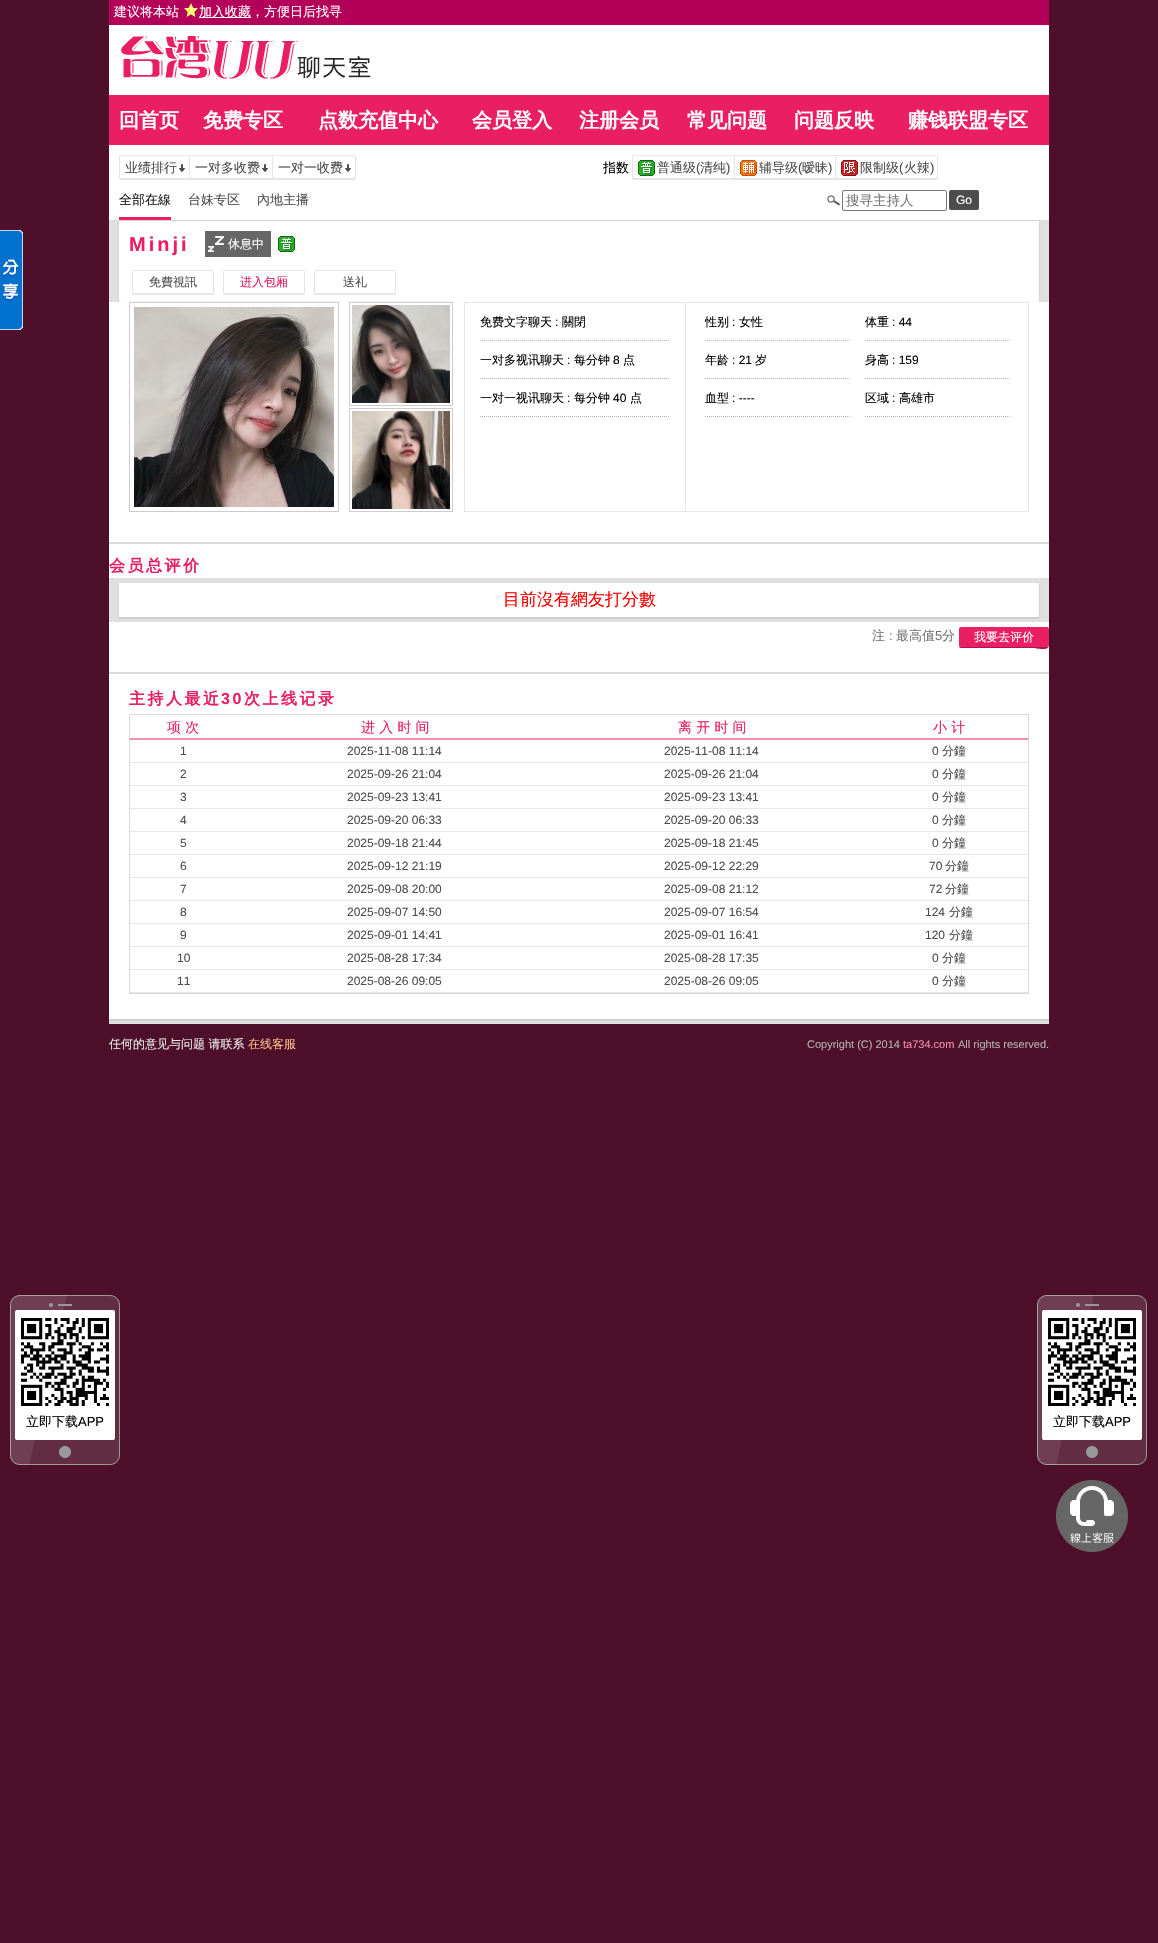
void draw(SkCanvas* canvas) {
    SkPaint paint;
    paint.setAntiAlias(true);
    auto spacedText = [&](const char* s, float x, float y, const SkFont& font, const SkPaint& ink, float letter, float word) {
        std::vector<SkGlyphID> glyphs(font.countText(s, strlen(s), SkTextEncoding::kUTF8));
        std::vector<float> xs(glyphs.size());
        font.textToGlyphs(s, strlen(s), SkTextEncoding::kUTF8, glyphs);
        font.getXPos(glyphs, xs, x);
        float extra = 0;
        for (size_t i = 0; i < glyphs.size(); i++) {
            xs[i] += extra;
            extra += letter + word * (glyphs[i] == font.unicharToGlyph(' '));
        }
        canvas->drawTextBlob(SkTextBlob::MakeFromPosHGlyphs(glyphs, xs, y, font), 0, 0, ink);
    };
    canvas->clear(0xFF4D0F29);
    paint.setColor(0xFFB30059);
    canvas->drawRect(SkRect::MakeXYWH(109, 0, 940, 25), paint);
    SkFont font1(fontMgr->matchFamilyStyle("WenQuanYi Zen Hei", SkFontStyle(500, SkFontStyle::kNormal_Width, SkFontStyle::kUpright_Slant)), 13);
    font1.setSubpixel(true);
    paint.setColor(0xFFFFFFFF);
    canvas->drawString("建议将本站", 114, 16, font1, paint);
    canvas->drawImageRect(SkImages::DeferredFromEncodedData(SkData::MakeFromFileName("img1.png")), SkRect::MakeXYWH(184, 3, 14, 14), SkSamplingOptions());
    canvas->drawRect(SkRect::MakeXYWH(199, 17, 52, 1), paint);
    canvas->drawString("加入收藏，方便日后找寻", 199, 16, font1, paint);
    canvas->drawRect(SkRect::MakeXYWH(109, 25, 940, 70), paint);
    canvas->drawImageRect(SkImages::DeferredFromEncodedData(SkData::MakeFromFileName("img2.png")), SkRect::MakeXYWH(121, 36, 250, 43), SkSamplingOptions());
    paint.setColor(0xFFE91E63);
    canvas->drawRect(SkRect::MakeXYWH(109, 95, 940, 50), paint);
    SkFont font2(fontMgr->matchFamilyStyle("WenQuanYi Zen Hei", SkFontStyle::Bold()), 20);
    font2.setSubpixel(true);
    paint.setColor(0xFFFFFFFF);
    canvas->drawString("回首页", 119, 127, font2, paint);
    canvas->drawString("免费专区", 203, 127, font2, paint);
    canvas->drawString("点数充值中心", 318, 127, font2, paint);
    canvas->drawString("会员登入", 472, 127, font2, paint);
    canvas->drawString("注册会员", 579, 127, font2, paint);
    canvas->drawString("常见问题", 687, 127, font2, paint);
    canvas->drawString("问题反映", 794, 127, font2, paint);
    canvas->drawString("赚钱联盟专区", 908, 127, font2, paint);
    paint.setColor(0xFFE0E0E0);
    canvas->drawRect(SkRect::MakeXYWH(109, 221, 940, 803), paint);
    paint.setColor(0xFFFFFFFF);
    canvas->drawRect(SkRect::MakeXYWH(109, 145, 940, 75), paint);
    paint.setColor(0xFFD9D9D9);
    canvas->drawRect(SkRect::MakeXYWH(109, 220, 940, 1), paint);
    canvas->drawImageRect(SkImages::DeferredFromEncodedData(SkData::MakeFromFileName("img3.png")), SkRect::MakeXYWH(120, 155, 235, 25), SkSamplingOptions());
    canvas->drawImageRect(SkImages::DeferredFromEncodedData(SkData::MakeFromFileName("img4.png")), SkRect::MakeXYWH(119, 155, 1, 25), SkSamplingOptions());
    paint.setColor(0xFF4C4C4C);
    canvas->drawString("业绩排行", 125, 172, font1, paint);
    canvas->drawImageRect(SkImages::DeferredFromEncodedData(SkData::MakeFromFileName("img5.png")), SkRect::MakeXYWH(179, 164, 6, 8), SkSamplingOptions());
    paint.setColor(0xFFE6E6E6);
    canvas->drawRect(SkRect::MakeXYWH(189, 155, 1, 25), paint);
    paint.setColor(0xFF4C4C4C);
    canvas->drawString("一对多收费", 195, 172, font1, paint);
    canvas->drawImageRect(SkImages::DeferredFromEncodedData(SkData::MakeFromFileName("img5.png")), SkRect::MakeXYWH(262, 164, 6, 8), SkSamplingOptions());
    paint.setColor(0xFFE6E6E6);
    canvas->drawRect(SkRect::MakeXYWH(272, 155, 1, 25), paint);
    paint.setColor(0xFF4C4C4C);
    canvas->drawString("一对一收费", 278, 172, font1, paint);
    canvas->drawImageRect(SkImages::DeferredFromEncodedData(SkData::MakeFromFileName("img5.png")), SkRect::MakeXYWH(345, 164, 6, 8), SkSamplingOptions());
    canvas->drawImageRect(SkImages::DeferredFromEncodedData(SkData::MakeFromFileName("img4.png")), SkRect::MakeXYWH(355, 155, 1, 25), SkSamplingOptions());
    canvas->drawImageRect(SkImages::DeferredFromEncodedData(SkData::MakeFromFileName("img6.png")), SkRect::MakeXYWH(633, 155, 304, 25), SkSamplingOptions());
    paint.setColor(0xFF000000);
    canvas->drawString("指数", 603, 172, font1, paint);
    canvas->drawImageRect(SkImages::DeferredFromEncodedData(SkData::MakeFromFileName("img4.png")), SkRect::MakeXYWH(632, 155, 1, 25), SkSamplingOptions());
    canvas->drawImageRect(SkImages::DeferredFromEncodedData(SkData::MakeFromFileName("img7.png")), SkRect::MakeXYWH(638, 160, 17, 16), SkSamplingOptions());
    paint.setColor(0xFF4C4C4C);
    canvas->drawString("普通级", 657, 172, font1, paint);
    SkFont font3(fontMgr->matchFamilyStyle("Liberation Sans", SkFontStyle::Normal()), 13);
    font3.setSubpixel(true);
    canvas->drawString("(", 696, 172, font3, paint);
    canvas->drawString("清纯", 700, 172, font1, paint);
    canvas->drawString(")", 726, 172, font3, paint);
    paint.setColor(0xFFE6E6E6);
    canvas->drawRect(SkRect::MakeXYWH(734, 155, 1, 25), paint);
    canvas->drawImageRect(SkImages::DeferredFromEncodedData(SkData::MakeFromFileName("img8.png")), SkRect::MakeXYWH(740, 160, 17, 16), SkSamplingOptions());
    paint.setColor(0xFF4C4C4C);
    canvas->drawString("辅导级", 759, 172, font1, paint);
    canvas->drawString("(", 798, 172, font3, paint);
    canvas->drawString("暧昧", 802, 172, font1, paint);
    canvas->drawString(")", 828, 172, font3, paint);
    paint.setColor(0xFFE6E6E6);
    canvas->drawRect(SkRect::MakeXYWH(835, 155, 1, 25), paint);
    canvas->drawImageRect(SkImages::DeferredFromEncodedData(SkData::MakeFromFileName("img9.png")), SkRect::MakeXYWH(841, 160, 17, 16), SkSamplingOptions());
    paint.setColor(0xFF4C4C4C);
    canvas->drawString("限制级", 860, 172, font1, paint);
    canvas->drawString("(", 899, 172, font3, paint);
    canvas->drawString("火辣", 904, 172, font1, paint);
    canvas->drawString(")", 930, 172, font3, paint);
    canvas->drawImageRect(SkImages::DeferredFromEncodedData(SkData::MakeFromFileName("img4.png")), SkRect::MakeXYWH(937, 155, 1, 25), SkSamplingOptions());
    paint.setColor(0x26000000);
    paint.setMaskFilter(SkMaskFilter::MakeBlur(kNormal_SkBlurStyle, 1));
    canvas->drawRect(SkRect::MakeXYWH(119, 222, 920, 81), paint);
    paint.setMaskFilter(nullptr);
    paint.setColor(0xFFE91E63);
    canvas->drawRect(SkRect::MakeXYWH(119, 217, 52, 3), paint);
    paint.setColor(0xFF1A1A1A);
    canvas->drawString("全部在線", 119, 204, font1, paint);
    paint.setColor(0xFF4C4C4C);
    canvas->drawString("台妹专区", 188, 204, font1, paint);
    canvas->drawString("內地主播", 257, 204, font1, paint);
    canvas->drawImageRect(SkImages::DeferredFromEncodedData(SkData::MakeFromFileName("img10.png")), SkRect::MakeXYWH(827, 195, 13, 11), SkSamplingOptions());
    paint.setStyle(SkPaint::kStroke_Style);
    paint.setStrokeWidth(1);
    paint.setColor(0xFF767676);
    canvas->drawRoundRect(SkRect::MakeXYWH(842.5f, 190.5f, 104, 20), 1.5f, 1.5f, paint);
    SkFont font4(fontMgr->matchFamilyStyle("WenQuanYi Zen Hei", SkFontStyle(500, SkFontStyle::kNormal_Width, SkFontStyle::kUpright_Slant)), 13.5f);
    font4.setSubpixel(true);
    paint.setStyle(SkPaint::kFill_Style);
    paint.setColor(0xFF757575);
    canvas->drawString("搜寻主持人", 846, 205, font4, paint);
    paint.setColor(0xFF4D4D4D);
    canvas->drawRoundRect(SkRect::MakeXYWH(949, 190, 30, 20), 2, 2, paint);
    SkFont font5(fontMgr->matchFamilyStyle("Liberation Sans", SkFontStyle::Normal()), 12);
    font5.setSubpixel(true);
    paint.setColor(0xFFFFFFFF);
    canvas->drawString("Go", 956, 204, font5, paint);
    canvas->drawImageRect(SkImages::DeferredFromEncodedData(SkData::MakeFromFileName("img11.png")), SkRect::MakeXYWH(0, 230, 23, 100), SkSamplingOptions());
    canvas->drawRect(SkRect::MakeXYWH(119, 221, 920, 81), paint);
    SkFont font6(fontMgr->matchFamilyStyle("Liberation Sans", SkFontStyle::Bold()), 20);
    font6.setSubpixel(true);
    paint.setColor(0xFFE91E63);
    spacedText("Minji", 129, 251, font6, paint, 3, 0);
    paint.setColor(0xFF666666);
    canvas->drawRect(SkRect::MakeXYWH(205, 231, 66, 26), paint);
    canvas->drawImageRect(SkImages::DeferredFromEncodedData(SkData::MakeFromFileName("img12.png")), SkRect::MakeXYWH(208, 236, 16, 16), SkSamplingOptions());
    SkFont font7(fontMgr->matchFamilyStyle("WenQuanYi Zen Hei", SkFontStyle(500, SkFontStyle::kNormal_Width, SkFontStyle::kUpright_Slant)), 12);
    font7.setSubpixel(true);
    paint.setColor(0xFFFFFFFF);
    canvas->drawString("休息中", 228, 248, font7, paint);
    canvas->drawImageRect(SkImages::DeferredFromEncodedData(SkData::MakeFromFileName("img7.png")), SkRect::MakeXYWH(278, 236, 17, 16), SkSamplingOptions());
    canvas->drawImageRect(SkImages::DeferredFromEncodedData(SkData::MakeFromFileName("img13.png")), SkRect::MakeXYWH(133, 270, 80, 25), SkSamplingOptions());
    canvas->drawImageRect(SkImages::DeferredFromEncodedData(SkData::MakeFromFileName("img4.png")), SkRect::MakeXYWH(132, 270, 1, 25), SkSamplingOptions());
    paint.setColor(0xFF4C4C4C);
    canvas->drawString("免費視訊", 149, 286, font7, paint);
    canvas->drawImageRect(SkImages::DeferredFromEncodedData(SkData::MakeFromFileName("img4.png")), SkRect::MakeXYWH(213, 270, 1, 25), SkSamplingOptions());
    canvas->drawImageRect(SkImages::DeferredFromEncodedData(SkData::MakeFromFileName("img13.png")), SkRect::MakeXYWH(224, 270, 80, 25), SkSamplingOptions());
    canvas->drawImageRect(SkImages::DeferredFromEncodedData(SkData::MakeFromFileName("img4.png")), SkRect::MakeXYWH(223, 270, 1, 25), SkSamplingOptions());
    paint.setColor(0xFFD81B60);
    canvas->drawString("进入包厢", 240, 286, font7, paint);
    canvas->drawImageRect(SkImages::DeferredFromEncodedData(SkData::MakeFromFileName("img4.png")), SkRect::MakeXYWH(304, 270, 1, 25), SkSamplingOptions());
    canvas->drawImageRect(SkImages::DeferredFromEncodedData(SkData::MakeFromFileName("img13.png")), SkRect::MakeXYWH(315, 270, 80, 25), SkSamplingOptions());
    canvas->drawImageRect(SkImages::DeferredFromEncodedData(SkData::MakeFromFileName("img4.png")), SkRect::MakeXYWH(314, 270, 1, 25), SkSamplingOptions());
    paint.setColor(0xFF4C4C4C);
    canvas->drawString("送礼", 343, 286, font7, paint);
    canvas->drawImageRect(SkImages::DeferredFromEncodedData(SkData::MakeFromFileName("img4.png")), SkRect::MakeXYWH(395, 270, 1, 25), SkSamplingOptions());
    paint.setColor(0x26000000);
    paint.setMaskFilter(SkMaskFilter::MakeBlur(kNormal_SkBlurStyle, 1));
    canvas->drawRect(SkRect::MakeXYWH(109, 303, 940, 717), paint);
    paint.setMaskFilter(nullptr);
    paint.setColor(0xFFFFFFFF);
    canvas->drawRect(SkRect::MakeXYWH(109, 302, 940, 717), paint);
    paint.setStyle(SkPaint::kStroke_Style);
    paint.setColor(0xFFCCCCCC);
    canvas->drawRect(SkRect::MakeXYWH(129.5f, 302.5f, 209, 209), paint);
    canvas->drawImageRect(SkImages::DeferredFromEncodedData(SkData::MakeFromFileName("img14.png")), SkRect::MakeXYWH(134, 307, 200, 200), SkSamplingOptions());
    canvas->drawRect(SkRect::MakeXYWH(349.5f, 302.5f, 103, 103), paint);
    canvas->drawImageRect(SkImages::DeferredFromEncodedData(SkData::MakeFromFileName("img15.png")), SkRect::MakeXYWH(352, 305, 98, 98), SkSamplingOptions());
    canvas->drawRect(SkRect::MakeXYWH(349.5f, 408.5f, 103, 103), paint);
    canvas->drawImageRect(SkImages::DeferredFromEncodedData(SkData::MakeFromFileName("img16.png")), SkRect::MakeXYWH(352, 411, 98, 98), SkSamplingOptions());
    paint.setStyle(SkPaint::kFill_Style);
    paint.setColor(0xFFE6E6E6);
    canvas->drawRect(SkRect::MakeXYWH(464, 302, 565, 210), paint);
    paint.setColor(0xFFFFFFFF);
    canvas->drawRect(SkRect::MakeXYWH(465, 303, 220, 208), paint);
    paint.setStyle(SkPaint::kStroke_Style);
    paint.setColor(0xFFB2B2B2);
    paint.setPathEffect(SkDashPathEffect::Make({{1, 1}}, 0));
    canvas->drawPath(SkPathBuilder().moveTo(480, 340.5f).lineTo(670, 340.5f).detach(), paint);
    paint.setPathEffect(nullptr);
    paint.setStyle(SkPaint::kFill_Style);
    paint.setColor(0xFF000000);
    canvas->drawString("免费文字聊天", 480, 326, font7, paint);
    canvas->drawString(":", 555, 326, font5, paint);
    canvas->drawString("關閉", 562, 326, font7, paint);
    paint.setStyle(SkPaint::kStroke_Style);
    paint.setColor(0xFFB2B2B2);
    paint.setPathEffect(SkDashPathEffect::Make({{1, 1}}, 0));
    canvas->drawPath(SkPathBuilder().moveTo(480, 378.5f).lineTo(670, 378.5f).detach(), paint);
    paint.setPathEffect(nullptr);
    paint.setStyle(SkPaint::kFill_Style);
    paint.setColor(0xFF000000);
    canvas->drawString("一对多视讯聊天", 480, 364, font7, paint);
    canvas->drawString(":", 567, 364, font5, paint);
    canvas->drawString("每分钟", 574, 364, font7, paint);
    canvas->drawString("8", 613, 364, font5, paint);
    canvas->drawString("点", 623, 364, font7, paint);
    paint.setStyle(SkPaint::kStroke_Style);
    paint.setColor(0xFFB2B2B2);
    paint.setPathEffect(SkDashPathEffect::Make({{1, 1}}, 0));
    canvas->drawPath(SkPathBuilder().moveTo(480, 416.5f).lineTo(670, 416.5f).detach(), paint);
    paint.setPathEffect(nullptr);
    paint.setStyle(SkPaint::kFill_Style);
    paint.setColor(0xFF000000);
    canvas->drawString("一对一视讯聊天", 480, 402, font7, paint);
    canvas->drawString(":", 567, 402, font5, paint);
    canvas->drawString("每分钟", 574, 402, font7, paint);
    canvas->drawString("40", 613, 402, font5, paint);
    canvas->drawString("点", 630, 402, font7, paint);
    paint.setColor(0xFFFFFFFF);
    canvas->drawRect(SkRect::MakeXYWH(686, 303, 342, 208), paint);
    paint.setStyle(SkPaint::kStroke_Style);
    paint.setColor(0xFFB2B2B2);
    paint.setPathEffect(SkDashPathEffect::Make({{1, 1}}, 0));
    canvas->drawPath(SkPathBuilder().moveTo(705, 340.5f).lineTo(850, 340.5f).detach(), paint);
    paint.setPathEffect(nullptr);
    paint.setStyle(SkPaint::kFill_Style);
    paint.setColor(0xFF000000);
    canvas->drawString("性别", 705, 326, font7, paint);
    canvas->drawString(":", 732, 326, font5, paint);
    canvas->drawString("女性", 739, 326, font7, paint);
    paint.setStyle(SkPaint::kStroke_Style);
    paint.setColor(0xFFB2B2B2);
    paint.setPathEffect(SkDashPathEffect::Make({{1, 1}}, 0));
    canvas->drawPath(SkPathBuilder().moveTo(865, 340.5f).lineTo(1010, 340.5f).detach(), paint);
    paint.setPathEffect(nullptr);
    paint.setStyle(SkPaint::kFill_Style);
    paint.setColor(0xFF000000);
    canvas->drawString("体重", 865, 326, font7, paint);
    canvas->drawString(": 44", 892, 326, font5, paint);
    paint.setStyle(SkPaint::kStroke_Style);
    paint.setColor(0xFFB2B2B2);
    paint.setPathEffect(SkDashPathEffect::Make({{1, 1}}, 0));
    canvas->drawPath(SkPathBuilder().moveTo(705, 378.5f).lineTo(850, 378.5f).detach(), paint);
    paint.setPathEffect(nullptr);
    paint.setStyle(SkPaint::kFill_Style);
    paint.setColor(0xFF000000);
    canvas->drawString("年龄", 705, 364, font7, paint);
    canvas->drawString(": 21", 732, 364, font5, paint);
    canvas->drawString("岁", 755, 364, font7, paint);
    paint.setStyle(SkPaint::kStroke_Style);
    paint.setColor(0xFFB2B2B2);
    paint.setPathEffect(SkDashPathEffect::Make({{1, 1}}, 0));
    canvas->drawPath(SkPathBuilder().moveTo(865, 378.5f).lineTo(1010, 378.5f).detach(), paint);
    paint.setPathEffect(nullptr);
    paint.setStyle(SkPaint::kFill_Style);
    paint.setColor(0xFF000000);
    canvas->drawString("身高", 865, 364, font7, paint);
    canvas->drawString(": 159", 892, 364, font5, paint);
    paint.setStyle(SkPaint::kStroke_Style);
    paint.setColor(0xFFB2B2B2);
    paint.setPathEffect(SkDashPathEffect::Make({{1, 1}}, 0));
    canvas->drawPath(SkPathBuilder().moveTo(705, 416.5f).lineTo(850, 416.5f).detach(), paint);
    paint.setPathEffect(nullptr);
    paint.setStyle(SkPaint::kFill_Style);
    paint.setColor(0xFF000000);
    canvas->drawString("血型", 705, 402, font7, paint);
    canvas->drawString(": ----", 732, 402, font5, paint);
    paint.setStyle(SkPaint::kStroke_Style);
    paint.setColor(0xFFB2B2B2);
    paint.setPathEffect(SkDashPathEffect::Make({{1, 1}}, 0));
    canvas->drawPath(SkPathBuilder().moveTo(865, 416.5f).lineTo(1010, 416.5f).detach(), paint);
    paint.setPathEffect(nullptr);
    paint.setStyle(SkPaint::kFill_Style);
    paint.setColor(0xFF000000);
    canvas->drawString("区域", 865, 402, font7, paint);
    canvas->drawString(":", 892, 402, font5, paint);
    canvas->drawString("高雄市", 899, 402, font7, paint);
    paint.setColor(0xFFD9D9D9);
    canvas->drawRect(SkRect::MakeXYWH(109, 542, 940, 2), paint);
    SkFont font8(fontMgr->matchFamilyStyle("WenQuanYi Zen Hei", SkFontStyle::Bold()), 16);
    font8.setSubpixel(true);
    paint.setColor(0xFFE91E63);
    spacedText("会员总评价", 109, 571, font8, paint, 2.5f, 0);
    paint.setColor(0xFFE0E0E0);
    canvas->drawRect(SkRect::MakeXYWH(109, 578, 940, 44), paint);
    paint.setColor(0x26000000);
    paint.setMaskFilter(SkMaskFilter::MakeBlur(kNormal_SkBlurStyle, 1));
    canvas->drawRect(SkRect::MakeXYWH(119, 584, 920, 34), paint);
    paint.setMaskFilter(nullptr);
    paint.setColor(0xFFFFFFFF);
    canvas->drawRect(SkRect::MakeXYWH(119, 583, 920, 34), paint);
    SkFont font9(fontMgr->matchFamilyStyle("WenQuanYi Zen Hei", SkFontStyle(500, SkFontStyle::kNormal_Width, SkFontStyle::kUpright_Slant)), 17);
    font9.setSubpixel(true);
    paint.setColor(0xFFFF0000);
    canvas->drawString("目前沒有網友打分數", 503, 605, font9, paint);
    paint.setColor(0xFF757575);
    canvas->drawString("注", 872, 640, font1, paint);
    canvas->drawString(":", 889, 640, font3, paint);
    canvas->drawString("最高值", 896, 640, font1, paint);
    canvas->drawString("5", 935, 640, font3, paint);
    canvas->drawString("分", 942, 640, font1, paint);
    paint.setColor(0xFFAD1457);
    canvas->drawPath(SkPathBuilder().moveTo(959, 645).cubicTo(959, 646, 959, 648, 961, 648).lineTo(1033, 648).cubicTo(1035, 648, 1049, 652, 1049, 645).cubicTo(1049, 646, 1048, 647, 1047, 647).lineTo(961, 647).cubicTo(960, 647, 959, 646, 959, 645).close().detach(), paint);
    paint.setColor(0xFFE91E63);
    canvas->drawRoundRect(SkRect::MakeXYWH(959, 627, 90, 20), 2, 2, paint);
    paint.setColor(0xFFFFFFFF);
    canvas->drawString("我要去评价", 974, 641, font7, paint);
    paint.setColor(0xFFD9D9D9);
    canvas->drawRect(SkRect::MakeXYWH(109, 672, 940, 2), paint);
    paint.setColor(0xFFE91E63);
    spacedText("主持人最近", 129, 704, font8, paint, 2.5f, 0);
    SkFont font10(fontMgr->matchFamilyStyle("Liberation Sans", SkFontStyle::Bold()), 16);
    font10.setSubpixel(true);
    spacedText("30", 221, 704, font10, paint, 2.5f, 0);
    spacedText("次上线记录", 244, 704, font8, paint, 2.5f, 0);
    paint.setStyle(SkPaint::kStroke_Style);
    paint.setColor(0xFFD9D9D9);
    canvas->drawRect(SkRect::MakeXYWH(129.5f, 714.5f, 899, 279), paint);
    paint.setStyle(SkPaint::kFill_Style);
    paint.setColor(0xFFF48FB1);
    canvas->drawRect(SkRect::MakeXYWH(130, 738, 898, 2), paint);
    SkFont font11(fontMgr->matchFamilyStyle("WenQuanYi Zen Hei", SkFontStyle(500, SkFontStyle::kNormal_Width, SkFontStyle::kUpright_Slant)), 14);
    font11.setSubpixel(true);
    paint.setColor(0xFFE91E63);
    canvas->drawString("项 次", 167, 732, font11, paint);
    canvas->drawString("进 入 时 间", 361, 732, font11, paint);
    canvas->drawString("离 开 时 间", 678, 732, font11, paint);
    canvas->drawString("小 计", 933, 732, font11, paint);
    paint.setColor(0xFFE6E6E6);
    canvas->drawRect(SkRect::MakeXYWH(130, 762, 898, 1), paint);
    paint.setColor(0xFF4C4C4C);
    canvas->drawString("1", 180, 755, font5, paint);
    canvas->drawString("2025-11-08 11:14", 347, 755, font5, paint);
    canvas->drawString("2025-11-08 11:14", 664, 755, font5, paint);
    canvas->drawString("0", 932, 755, font5, paint);
    canvas->drawString("分鐘", 942, 755, font7, paint);
    paint.setColor(0xFFE6E6E6);
    canvas->drawRect(SkRect::MakeXYWH(130, 785, 898, 1), paint);
    paint.setColor(0xFF4C4C4C);
    canvas->drawString("2", 180, 778, font5, paint);
    canvas->drawString("2025-09-26 21:04", 347, 778, font5, paint);
    canvas->drawString("2025-09-26 21:04", 664, 778, font5, paint);
    canvas->drawString("0", 932, 778, font5, paint);
    canvas->drawString("分鐘", 942, 778, font7, paint);
    paint.setColor(0xFFE6E6E6);
    canvas->drawRect(SkRect::MakeXYWH(130, 808, 898, 1), paint);
    paint.setColor(0xFF4C4C4C);
    canvas->drawString("3", 180, 801, font5, paint);
    canvas->drawString("2025-09-23 13:41", 347, 801, font5, paint);
    canvas->drawString("2025-09-23 13:41", 664, 801, font5, paint);
    canvas->drawString("0", 932, 801, font5, paint);
    canvas->drawString("分鐘", 942, 801, font7, paint);
    paint.setColor(0xFFE6E6E6);
    canvas->drawRect(SkRect::MakeXYWH(130, 831, 898, 1), paint);
    paint.setColor(0xFF4C4C4C);
    canvas->drawString("4", 180, 824, font5, paint);
    canvas->drawString("2025-09-20 06:33", 347, 824, font5, paint);
    canvas->drawString("2025-09-20 06:33", 664, 824, font5, paint);
    canvas->drawString("0", 932, 824, font5, paint);
    canvas->drawString("分鐘", 942, 824, font7, paint);
    paint.setColor(0xFFE6E6E6);
    canvas->drawRect(SkRect::MakeXYWH(130, 854, 898, 1), paint);
    paint.setColor(0xFF4C4C4C);
    canvas->drawString("5", 180, 847, font5, paint);
    canvas->drawString("2025-09-18 21:44", 347, 847, font5, paint);
    canvas->drawString("2025-09-18 21:45", 664, 847, font5, paint);
    canvas->drawString("0", 932, 847, font5, paint);
    canvas->drawString("分鐘", 942, 847, font7, paint);
    paint.setColor(0xFFE6E6E6);
    canvas->drawRect(SkRect::MakeXYWH(130, 877, 898, 1), paint);
    paint.setColor(0xFF4C4C4C);
    canvas->drawString("6", 180, 870, font5, paint);
    canvas->drawString("2025-09-12 21:19", 347, 870, font5, paint);
    canvas->drawString("2025-09-12 22:29", 664, 870, font5, paint);
    canvas->drawString("70", 929, 870, font5, paint);
    canvas->drawString("分鐘", 945, 870, font7, paint);
    paint.setColor(0xFFE6E6E6);
    canvas->drawRect(SkRect::MakeXYWH(130, 900, 898, 1), paint);
    paint.setColor(0xFF4C4C4C);
    canvas->drawString("7", 180, 893, font5, paint);
    canvas->drawString("2025-09-08 20:00", 347, 893, font5, paint);
    canvas->drawString("2025-09-08 21:12", 664, 893, font5, paint);
    canvas->drawString("72", 929, 893, font5, paint);
    canvas->drawString("分鐘", 945, 893, font7, paint);
    paint.setColor(0xFFE6E6E6);
    canvas->drawRect(SkRect::MakeXYWH(130, 923, 898, 1), paint);
    paint.setColor(0xFF4C4C4C);
    canvas->drawString("8", 180, 916, font5, paint);
    canvas->drawString("2025-09-07 14:50", 347, 916, font5, paint);
    canvas->drawString("2025-09-07 16:54", 664, 916, font5, paint);
    canvas->drawString("124", 925, 916, font5, paint);
    canvas->drawString("分鐘", 949, 916, font7, paint);
    paint.setColor(0xFFE6E6E6);
    canvas->drawRect(SkRect::MakeXYWH(130, 946, 898, 1), paint);
    paint.setColor(0xFF4C4C4C);
    canvas->drawString("9", 180, 939, font5, paint);
    canvas->drawString("2025-09-01 14:41", 347, 939, font5, paint);
    canvas->drawString("2025-09-01 16:41", 664, 939, font5, paint);
    canvas->drawString("120", 925, 939, font5, paint);
    canvas->drawString("分鐘", 949, 939, font7, paint);
    paint.setColor(0xFFE6E6E6);
    canvas->drawRect(SkRect::MakeXYWH(130, 969, 898, 1), paint);
    paint.setColor(0xFF4C4C4C);
    canvas->drawString("10", 177, 962, font5, paint);
    canvas->drawString("2025-08-28 17:34", 347, 962, font5, paint);
    canvas->drawString("2025-08-28 17:35", 664, 962, font5, paint);
    canvas->drawString("0", 932, 962, font5, paint);
    canvas->drawString("分鐘", 942, 962, font7, paint);
    paint.setColor(0xFFE6E6E6);
    canvas->drawRect(SkRect::MakeXYWH(130, 992, 898, 1), paint);
    paint.setColor(0xFF4C4C4C);
    canvas->drawString("11", 177, 985, font5, paint);
    canvas->drawString("2025-08-26 09:05", 347, 985, font5, paint);
    canvas->drawString("2025-08-26 09:05", 664, 985, font5, paint);
    canvas->drawString("0", 932, 985, font5, paint);
    canvas->drawString("分鐘", 942, 985, font7, paint);
    canvas->drawImageRect(SkImages::DeferredFromEncodedData(SkData::MakeFromFileName("img17.png")), SkRect::MakeXYWH(10, 1295, 110, 170), SkSamplingOptions());
    canvas->drawImageRect(SkImages::DeferredFromEncodedData(SkData::MakeFromFileName("img18.png")), SkRect::MakeXYWH(21, 1318, 88, 88), SkSamplingOptions());
    paint.setColor(0xFF000000);
    canvas->drawString("立即下载", 26, 1426, font1, paint);
    canvas->drawString("APP", 78, 1426, font3, paint);
    canvas->drawImageRect(SkImages::DeferredFromEncodedData(SkData::MakeFromFileName("img17.png")), SkRect::MakeXYWH(1037, 1295, 110, 170), SkSamplingOptions());
    canvas->drawImageRect(SkImages::DeferredFromEncodedData(SkData::MakeFromFileName("img18.png")), SkRect::MakeXYWH(1048, 1318, 88, 88), SkSamplingOptions());
    canvas->drawString("立即下载", 1053, 1426, font1, paint);
    canvas->drawString("APP", 1105, 1426, font3, paint);
    canvas->drawImageRect(SkImages::DeferredFromEncodedData(SkData::MakeFromFileName("img19.png")), SkRect::MakeXYWH(1056, 1480, 72, 72), SkSamplingOptions());
    paint.setColor(0xFFE5E5E5);
    canvas->drawString("任何的意见与问题 请联系", 109, 1048, font7, paint);
    paint.setColor(0xFFFFBC8C);
    canvas->drawString("在线客服", 248, 1048, font7, paint);
    SkFont font12(fontMgr->matchFamilyStyle("Liberation Sans", SkFontStyle::Normal()), 11);
    font12.setSubpixel(true);
    paint.setColor(0xFFB2B2B2);
    canvas->drawString("Copyright (C) 2014", 807, 1048, font12, paint);
    paint.setColor(0xFFF48FB1);
    canvas->drawString("ta734.com", 903, 1048, font12, paint);
    paint.setColor(0xFFB2B2B2);
    canvas->drawString("All rights reserved.", 958, 1048, font12, paint);
}
